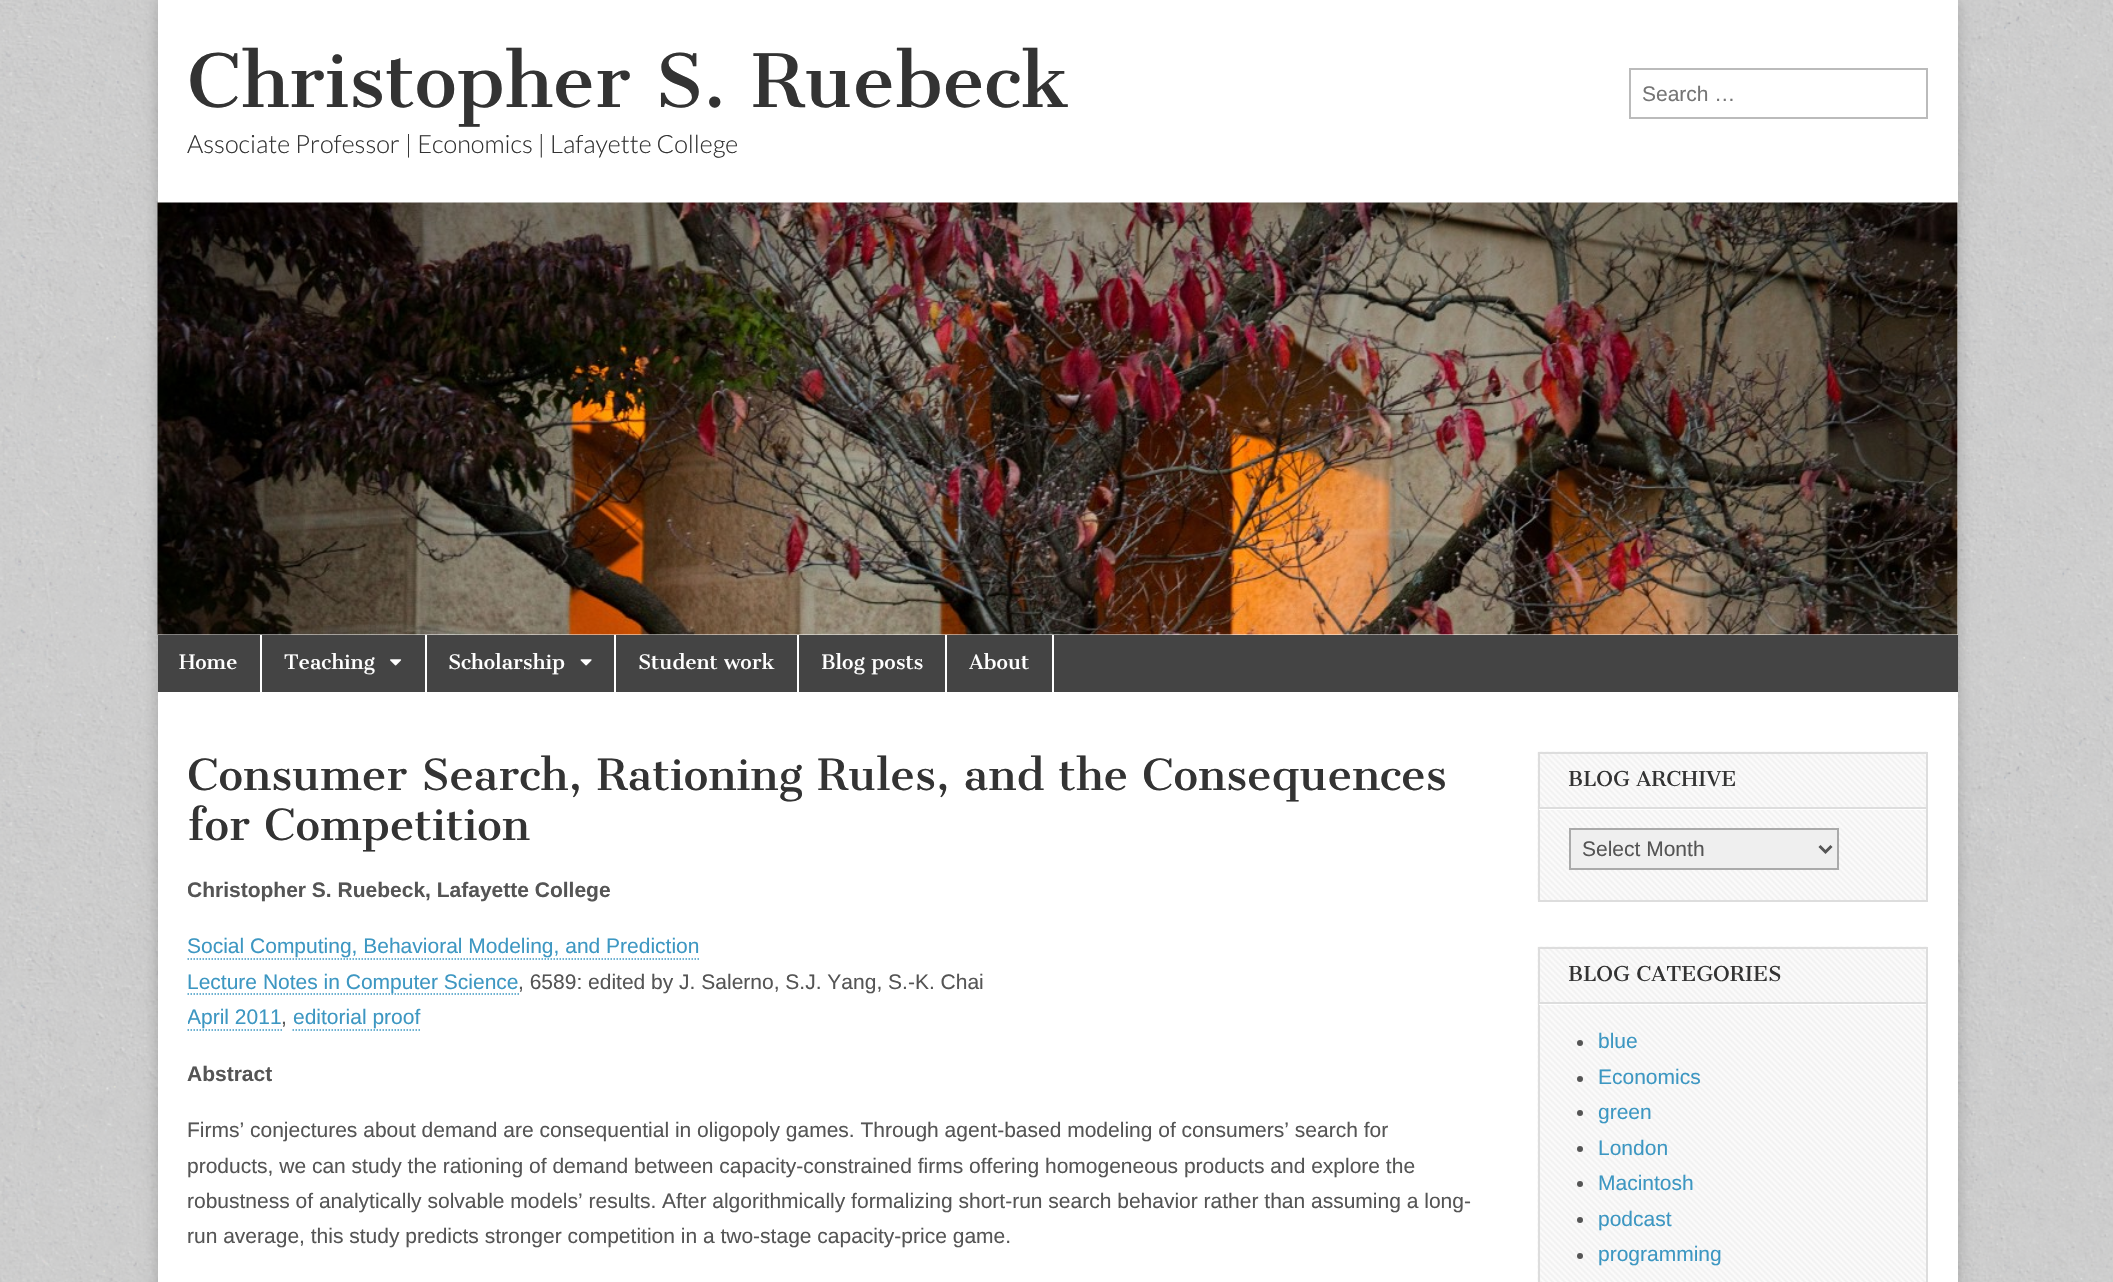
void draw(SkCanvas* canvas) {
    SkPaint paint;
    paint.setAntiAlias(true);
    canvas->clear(0xFFFFFFFF);
    canvas->drawImageRect(SkImages::DeferredFromEncodedData(SkData::MakeFromFileName("img1.png")), SkRect::MakeXYWH(0, 0, 2113, 1282), SkSamplingOptions());
    paint.setColor(0x33000000);
    paint.setMaskFilter(SkMaskFilter::MakeBlur(kNormal_SkBlurStyle, 7.5f));
    canvas->drawRect(SkRect::MakeXYWH(158, 0, 1800, 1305), paint);
    paint.setMaskFilter(nullptr);
    paint.setColor(0xFFFFFFFF);
    canvas->drawRect(SkRect::MakeXYWH(158, 0, 1800, 1282), paint);
    SkFont font1(fontMgr->matchFamilyStyle("Cantata One", SkFontStyle::Normal()), 72);
    font1.setSubpixel(true);
    paint.setColor(0xFF333333);
    canvas->drawString("Christopher S. Ruebeck", 187, 107, font1, paint);
    SkFont font2(fontMgr->matchFamilyStyle("Lato", SkFontStyle(300, SkFontStyle::kNormal_Width, SkFontStyle::kUpright_Slant)), 25.2f);
    font2.setSubpixel(true);
    canvas->drawString("Associate Professor | Economics | Lafayette College", 187, 153, font2, paint);
    paint.setStyle(SkPaint::kStroke_Style);
    paint.setStrokeWidth(2);
    paint.setColor(0xFFBBBBBB);
    canvas->drawRect(SkRect::MakeXYWH(1630, 69, 297, 49), paint);
    SkFont font3(fontMgr->matchFamilyStyle("Liberation Sans", SkFontStyle::Normal()), 21);
    font3.setSubpixel(true);
    paint.setStyle(SkPaint::kFill_Style);
    paint.setColor(0xFF757575);
    canvas->drawString("Search …", 1642, 101, font3, paint);
    canvas->drawImageRect(SkImages::DeferredFromEncodedData(SkData::MakeFromFileName("img2.png")), SkRect::MakeXYWH(157, 202, 1801, 433), SkSamplingOptions());
    paint.setColor(0xFF444444);
    canvas->drawRect(SkRect::MakeXYWH(158, 635, 1800, 57), paint);
    paint.setColor(0xFFFFFFFF);
    canvas->drawRect(SkRect::MakeXYWH(260, 635, 2, 57), paint);
    SkFont font4(fontMgr->matchFamilyStyle("Cantata One", SkFontStyle::Normal()), 19.5f);
    font4.setSubpixel(true);
    canvas->drawString("Home", 179, 669, font4, paint);
    canvas->drawRect(SkRect::MakeXYWH(425, 635, 2, 57), paint);
    canvas->drawString("Teaching", 284, 669, font4, paint);
    canvas->drawImageRect(SkImages::DeferredFromEncodedData(SkData::MakeFromFileName("img3.png")), SkRect::MakeXYWH(390, 659, 12, 7), SkSamplingOptions());
    canvas->drawRect(SkRect::MakeXYWH(614, 635, 2, 57), paint);
    canvas->drawString("Scholarship", 448, 669, font4, paint);
    canvas->drawImageRect(SkImages::DeferredFromEncodedData(SkData::MakeFromFileName("img4.png")), SkRect::MakeXYWH(580, 659, 12, 7), SkSamplingOptions());
    canvas->drawRect(SkRect::MakeXYWH(797, 635, 2, 57), paint);
    canvas->drawString("Student work", 638, 669, font4, paint);
    canvas->drawRect(SkRect::MakeXYWH(945, 635, 2, 57), paint);
    canvas->drawString("Blog posts", 821, 669, font4, paint);
    canvas->drawRect(SkRect::MakeXYWH(1052, 635, 2, 57), paint);
    canvas->drawString("About", 969, 669, font4, paint);
    SkFont font5(fontMgr->matchFamilyStyle("Cantata One", SkFontStyle::Normal()), 42);
    font5.setSubpixel(true);
    paint.setColor(0xFF333333);
    canvas->drawString("Consumer Search, Rationing Rules, and the Consequences", 187, 790, font5, paint);
    canvas->drawString("for Competition", 187, 840, font5, paint);
    canvas->save();
    canvas->clipRect(SkRect::MakeXYWH(188, 852, 1290, 425));
    SkFont font6(fontMgr->matchFamilyStyle("Liberation Sans", SkFontStyle::Bold()), 21);
    font6.setSubpixel(true);
    paint.setColor(0xFF555555);
    canvas->drawString("Christopher S. Ruebeck, Lafayette College", 187, 897, font6, paint);
    canvas->restore();
    paint.setColor(0xFF3D97C2);
    canvas->drawString("Social Computing, Behavioral Modeling, and Prediction", 187, 953, font3, paint);
    paint.setStyle(SkPaint::kStroke_Style);
    paint.setStrokeWidth(1.5f);
    paint.setPathEffect(SkDashPathEffect::Make({{1.5f, 1.5f}}, 0));
    canvas->drawPath(SkPathBuilder().moveTo(187.5f, 959).lineTo(699, 959).detach(), paint);
    paint.setPathEffect(nullptr);
    paint.setPathEffect(SkDashPathEffect::Make({{1.5f, 1.5f}}, 0));
    canvas->drawPath(SkPathBuilder().moveTo(187.5f, 994).lineTo(519, 994).detach(), paint);
    paint.setPathEffect(nullptr);
    paint.setStyle(SkPaint::kFill_Style);
    canvas->drawString("Lecture Notes in Computer Science", 187, 989, font3, paint);
    paint.setColor(0xFF555555);
    canvas->drawString(", 6589: edited by J. Salerno, S.J. Yang, S.-K. Chai", 518, 989, font3, paint);
    canvas->save();
    canvas->clipRect(SkRect::MakeXYWH(188, 852, 1290, 425));
    paint.setColor(0xFF3D97C2);
    canvas->drawString("April 2011", 187, 1024, font3, paint);
    canvas->restore();
    paint.setStyle(SkPaint::kStroke_Style);
    paint.setPathEffect(SkDashPathEffect::Make({{1.5f, 1.5f}}, 0));
    canvas->drawPath(SkPathBuilder().moveTo(187.5f, 1030).lineTo(282, 1030).detach(), paint);
    paint.setPathEffect(nullptr);
    paint.setStyle(SkPaint::kFill_Style);
    paint.setColor(0xFF555555);
    canvas->drawString(",", 281, 1024, font3, paint);
    paint.setColor(0xFF3D97C2);
    canvas->drawString("editorial proof", 293, 1024, font3, paint);
    paint.setStyle(SkPaint::kStroke_Style);
    paint.setPathEffect(SkDashPathEffect::Make({{1.5f, 1.5f}}, 0));
    canvas->drawPath(SkPathBuilder().moveTo(292.5f, 1030).lineTo(420, 1030).detach(), paint);
    paint.setPathEffect(nullptr);
    paint.setStyle(SkPaint::kFill_Style);
    paint.setColor(0xFF555555);
    canvas->drawString("Abstract", 187, 1081, font6, paint);
    canvas->drawString("Firms’ conjectures about demand are consequential in oligopoly games. Through agent-based modeling of consumers’ search for", 187, 1137, font3, paint);
    canvas->drawString("products, we can study the rationing of demand between capacity-constrained firms offering homogeneous products and explore the", 187, 1173, font3, paint);
    canvas->drawString("robustness of analytically solvable models’ results. After algorithmically formalizing short-run search behavior rather than assuming a long-", 187, 1208, font3, paint);
    canvas->drawString("run average, this study predicts stronger competition in a two-stage capacity-price game.", 187, 1243, font3, paint);
    canvas->drawImageRect(SkImages::DeferredFromEncodedData(SkData::MakeFromFileName("img5.png")), SkRect::MakeXYWH(1537, 751, 391, 151), SkSamplingOptions());
    paint.setStyle(SkPaint::kStroke_Style);
    paint.setStrokeWidth(2);
    paint.setColor(0xFFDDDDDD);
    canvas->drawRect(SkRect::MakeXYWH(1539, 753, 388, 148), paint);
    paint.setStyle(SkPaint::kFill_Style);
    paint.setColor(0xFFFFFFFF);
    canvas->drawRect(SkRect::MakeXYWH(1539, 809, 387, 1), paint);
    paint.setColor(0xFFDDDDDD);
    canvas->drawRect(SkRect::MakeXYWH(1539, 807, 387, 2), paint);
    SkFont font7(fontMgr->matchFamilyStyle("Cantata One", SkFontStyle::Normal()), 20);
    font7.setSubpixel(true);
    paint.setColor(0xFF333333);
    canvas->drawString("BLOG ARCHIVE", 1568, 786, font7, paint);
    paint.setColor(0xFFEFEFEF);
    canvas->drawRect(SkRect::MakeXYWH(1570, 829, 268, 40), paint);
    paint.setStyle(SkPaint::kStroke_Style);
    paint.setColor(0xFFAAAAAA);
    canvas->drawRect(SkRect::MakeXYWH(1570, 829, 268, 40), paint);
    paint.setStrokeWidth(3);
    paint.setColor(0xFF555555);
    canvas->drawPath(SkPathBuilder().moveTo(1819.5f, 846).lineTo(1825.5f, 852).lineTo(1831.5f, 846).detach(), paint);
    paint.setStyle(SkPaint::kFill_Style);
    canvas->drawString("Select Month", 1582, 856, font3, paint);
    canvas->drawImageRect(SkImages::DeferredFromEncodedData(SkData::MakeFromFileName("img6.png")), SkRect::MakeXYWH(1537, 946, 391, 336), SkSamplingOptions());
    paint.setStyle(SkPaint::kStroke_Style);
    paint.setStrokeWidth(2);
    paint.setColor(0xFFDDDDDD);
    canvas->drawRect(SkRect::MakeXYWH(1539, 948, 388, 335), paint);
    paint.setStyle(SkPaint::kFill_Style);
    paint.setColor(0xFFFFFFFF);
    canvas->drawRect(SkRect::MakeXYWH(1539, 1004, 387, 1), paint);
    paint.setColor(0xFFDDDDDD);
    canvas->drawRect(SkRect::MakeXYWH(1539, 1002, 387, 2), paint);
    paint.setColor(0xFF333333);
    canvas->drawString("BLOG CATEGORIES", 1568, 981, font7, paint);
    paint.setColor(0xFF555555);
    canvas->drawCircle(1580, 1043, 3, paint);
    paint.setColor(0xFF3D97C2);
    canvas->drawString("blue", 1598, 1048, font3, paint);
    paint.setColor(0xFF555555);
    canvas->drawCircle(1580, 1079, 3, paint);
    paint.setColor(0xFF3D97C2);
    canvas->drawString("Economics", 1598, 1084, font3, paint);
    paint.setColor(0xFF555555);
    canvas->drawCircle(1580, 1113, 3, paint);
    paint.setColor(0xFF3D97C2);
    canvas->drawString("green", 1598, 1119, font3, paint);
    paint.setColor(0xFF555555);
    canvas->drawCircle(1580, 1149, 3, paint);
    paint.setColor(0xFF3D97C2);
    canvas->drawString("London", 1598, 1155, font3, paint);
    paint.setColor(0xFF555555);
    canvas->drawCircle(1580, 1184, 3, paint);
    paint.setColor(0xFF3D97C2);
    canvas->drawString("Macintosh", 1598, 1190, font3, paint);
    paint.setColor(0xFF555555);
    canvas->drawCircle(1580, 1220, 3, paint);
    paint.setColor(0xFF3D97C2);
    canvas->drawString("podcast", 1598, 1226, font3, paint);
    paint.setColor(0xFF555555);
    canvas->drawCircle(1580, 1256, 3, paint);
    paint.setColor(0xFF3D97C2);
    canvas->drawString("programming", 1598, 1261, font3, paint);
}
